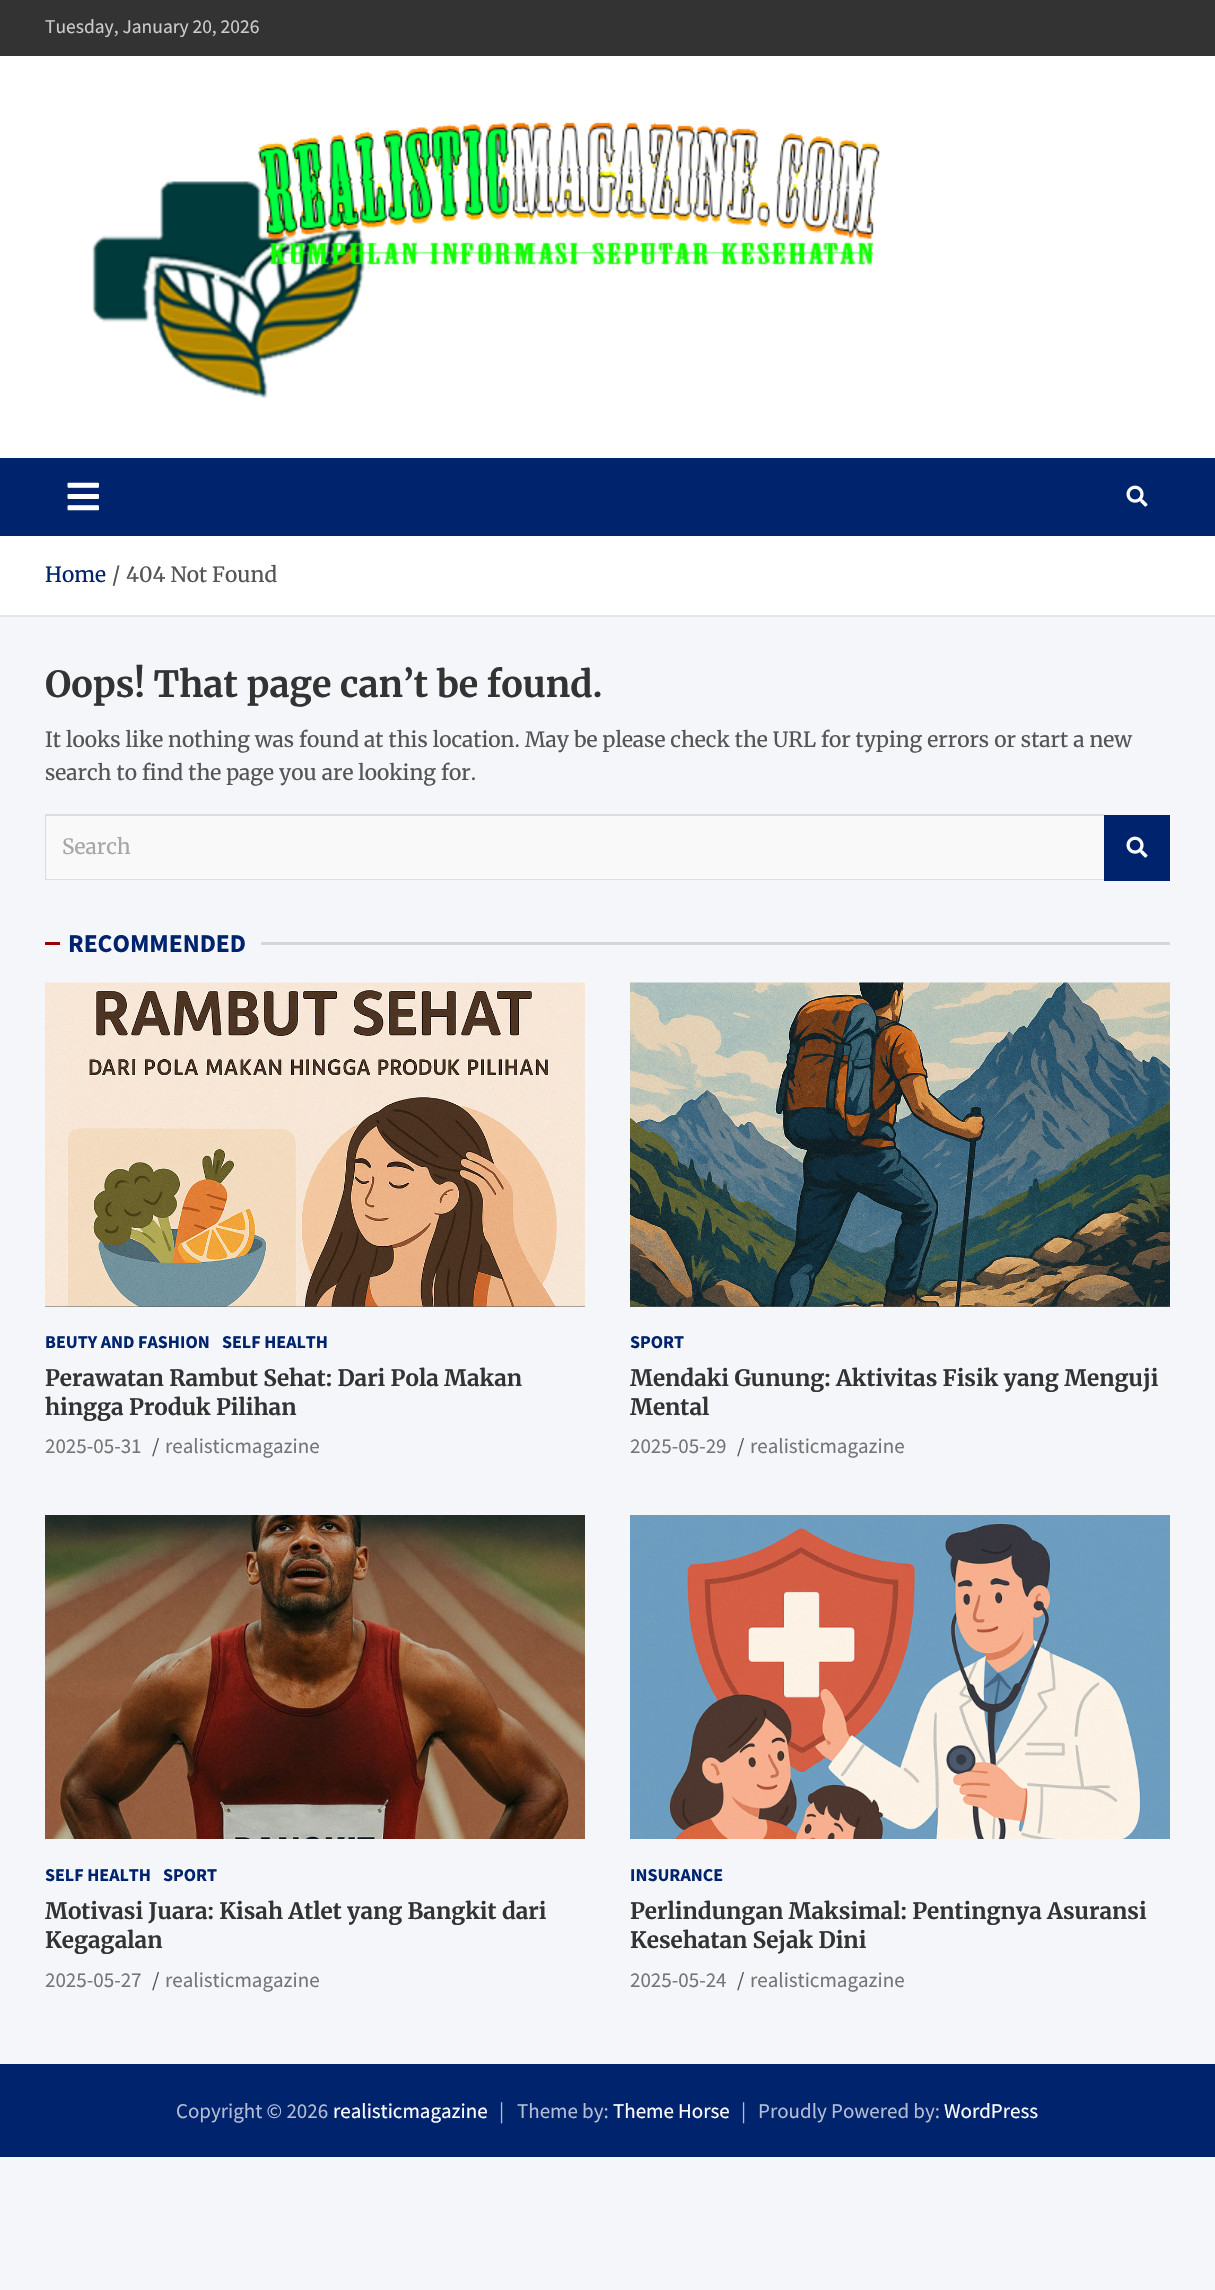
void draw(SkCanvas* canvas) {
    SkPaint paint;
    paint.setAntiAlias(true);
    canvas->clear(0xFFF4F6F9);
    paint.setColor(0xFF333333);
    canvas->drawRect(SkRect::MakeXYWH(0, 0, 1215, 56), paint);
    SkFont font1(fontMgr->matchFamilyStyle("Source Sans Pro", SkFontStyle::Normal()), 19.5f);
    font1.setSubpixel(true);
    paint.setColor(0xFFCCCCCC);
    canvas->drawString("Tuesday, January 20, 2026", 45, 33, font1, paint);
    paint.setColor(0xFFFFFFFF);
    canvas->drawRect(SkRect::MakeXYWH(0, 56, 1215, 402), paint);
    canvas->drawImageRect(SkImages::DeferredFromEncodedData(SkData::MakeFromFileName("img1.png")), SkRect::MakeXYWH(92, 122, 788, 276), SkSamplingOptions());
    paint.setColor(0xFF00236E);
    canvas->drawRect(SkRect::MakeXYWH(0, 458, 1215, 78), paint);
    canvas->drawImageRect(SkImages::DeferredFromEncodedData(SkData::MakeFromFileName("img2.png")), SkRect::MakeXYWH(67, 482, 32, 29), SkSamplingOptions());
    canvas->drawImageRect(SkImages::DeferredFromEncodedData(SkData::MakeFromFileName("img3.png")), SkRect::MakeXYWH(1126, 485, 22, 22), SkSamplingOptions());
    paint.setColor(0xFFFFFFFF);
    canvas->drawRect(SkRect::MakeXYWH(0, 536, 1215, 79), paint);
    paint.setColor(0xFFE6E6E6);
    canvas->drawRect(SkRect::MakeXYWH(0, 615, 1215, 2), paint);
    SkFont font2(fontMgr->matchFamilyStyle("Merriweather", SkFontStyle::Normal()), 21);
    font2.setSubpixel(true);
    paint.setColor(0xFF00236E);
    canvas->drawString("Home", 45, 582, font2, paint);
    paint.setColor(0xFF555555);
    canvas->drawString("/", 112, 582, font2, paint);
    canvas->drawString("404 Not Found", 126, 582, font2, paint);
    SkFont font3(fontMgr->matchFamilyStyle("Merriweather", SkFontStyle::Bold()), 36);
    font3.setSubpixel(true);
    paint.setColor(0xFF333333);
    canvas->drawString("Oops! That page can’t be found.", 45, 697, font3, paint);
    paint.setColor(0xFF555555);
    canvas->drawString("It looks like nothing was found at this location. May be please check the URL for typing errors or start a new", 45, 747, font2, paint);
    canvas->drawString("search to find the page you are looking for.", 45, 780, font2, paint);
    paint.setColor(0xFFF9F9F9);
    canvas->drawRect(SkRect::MakeXYWH(47, 816, 1057, 63), paint);
    paint.setColor(0xFFDCDDE0);
    canvas->drawPath(SkPathBuilder().moveTo(45, 814).lineTo(1104, 814).lineTo(1104, 816).lineTo(46, 816).close().detach(), paint);
    canvas->drawPath(SkPathBuilder().moveTo(1104, 880).lineTo(45, 880).lineTo(46, 879).lineTo(1104, 879).close().detach(), paint);
    paint.setColor(0x1A000000);
    canvas->drawPath(SkPathBuilder().moveTo(45, 880).lineTo(45, 814).lineTo(46, 816).lineTo(46, 879).close().detach(), paint);
    paint.setColor(0xFFA7A7A7);
    canvas->drawString("Search", 62, 854, font2, paint);
    paint.setColor(0xFF00236E);
    canvas->drawRect(SkRect::MakeXYWH(1104, 815, 66, 66), paint);
    canvas->drawImageRect(SkImages::DeferredFromEncodedData(SkData::MakeFromFileName("img3.png")), SkRect::MakeXYWH(1126, 836, 22, 22), SkSamplingOptions());
    paint.setColor(0xFF950202);
    canvas->drawRect(SkRect::MakeXYWH(45, 942, 15, 3), paint);
    SkFont font4(fontMgr->matchFamilyStyle("Source Sans Pro", SkFontStyle::Bold()), 25.5f);
    font4.setSubpixel(true);
    paint.setColor(0xFF00236E);
    canvas->drawString("RECOMMENDED", 68, 952, font4, paint);
    paint.setColor(0xFFD4D6D8);
    canvas->drawRect(SkRect::MakeXYWH(261, 942, 909, 3), paint);
    paint.setColor(0xFF555555);
    canvas->drawRect(SkRect::MakeXYWH(45, 1306, 540, 1), paint);
    canvas->drawImageRect(SkImages::DeferredFromEncodedData(SkData::MakeFromFileName("img4.png")), SkRect::MakeXYWH(45, 982, 540, 325), SkSamplingOptions());
    SkFont font5(fontMgr->matchFamilyStyle("Source Sans Pro", SkFontStyle::Bold()), 18);
    font5.setSubpixel(true);
    paint.setColor(0xFF00236E);
    canvas->drawString("BEUTY AND FASHION", 45, 1348, font5, paint);
    canvas->drawString("SELF HEALTH", 222, 1348, font5, paint);
    SkFont font6(fontMgr->matchFamilyStyle("Merriweather", SkFontStyle::Bold()), 22.5f);
    font6.setSubpixel(true);
    paint.setColor(0xFF333333);
    canvas->drawString("Perawatan Rambut Sehat: Dari Pola Makan", 45, 1386, font6, paint);
    canvas->drawString("hingga Produk Pilihan", 45, 1415, font6, paint);
    SkFont font7(fontMgr->matchFamilyStyle("Source Sans Pro", SkFontStyle::Normal()), 21);
    font7.setSubpixel(true);
    paint.setColor(0xFF757576);
    canvas->drawString("2025-05-31", 45, 1453, font7, paint);
    paint.setColor(0xFF555555);
    canvas->drawString("/", 152, 1453, font7, paint);
    paint.setColor(0xFF757576);
    canvas->drawString("realisticmagazine", 165, 1453, font7, paint);
    paint.setColor(0xFF555555);
    canvas->drawRect(SkRect::MakeXYWH(630, 1306, 540, 1), paint);
    canvas->drawImageRect(SkImages::DeferredFromEncodedData(SkData::MakeFromFileName("img5.png")), SkRect::MakeXYWH(630, 982, 540, 325), SkSamplingOptions());
    paint.setColor(0xFF00236E);
    canvas->drawString("SPORT", 630, 1348, font5, paint);
    paint.setColor(0xFF333333);
    canvas->drawString("Mendaki Gunung: Aktivitas Fisik yang Menguji", 630, 1386, font6, paint);
    canvas->drawString("Mental", 630, 1415, font6, paint);
    paint.setColor(0xFF757576);
    canvas->drawString("2025-05-29", 630, 1453, font7, paint);
    paint.setColor(0xFF555555);
    canvas->drawString("/", 737, 1453, font7, paint);
    paint.setColor(0xFF757576);
    canvas->drawString("realisticmagazine", 750, 1453, font7, paint);
    canvas->drawImageRect(SkImages::DeferredFromEncodedData(SkData::MakeFromFileName("img6.png")), SkRect::MakeXYWH(45, 1515, 540, 324), SkSamplingOptions());
    paint.setColor(0xFF00236E);
    canvas->drawString("SELF HEALTH", 45, 1881, font5, paint);
    canvas->drawString("SPORT", 163, 1881, font5, paint);
    paint.setColor(0xFF333333);
    canvas->drawString("Motivasi Juara: Kisah Atlet yang Bangkit dari", 45, 1919, font6, paint);
    canvas->drawString("Kegagalan", 45, 1948, font6, paint);
    paint.setColor(0xFF757576);
    canvas->drawString("2025-05-27", 45, 1987, font7, paint);
    paint.setColor(0xFF555555);
    canvas->drawString("/", 152, 1987, font7, paint);
    paint.setColor(0xFF757576);
    canvas->drawString("realisticmagazine", 165, 1987, font7, paint);
    canvas->drawImageRect(SkImages::DeferredFromEncodedData(SkData::MakeFromFileName("img7.png")), SkRect::MakeXYWH(630, 1515, 540, 324), SkSamplingOptions());
    paint.setColor(0xFF00236E);
    canvas->drawString("INSURANCE", 630, 1881, font5, paint);
    paint.setColor(0xFF333333);
    canvas->drawString("Perlindungan Maksimal: Pentingnya Asuransi", 630, 1919, font6, paint);
    canvas->drawString("Kesehatan Sejak Dini", 630, 1948, font6, paint);
    paint.setColor(0xFF757576);
    canvas->drawString("2025-05-24", 630, 1987, font7, paint);
    paint.setColor(0xFF555555);
    canvas->drawString("/", 737, 1987, font7, paint);
    paint.setColor(0xFF757576);
    canvas->drawString("realisticmagazine", 750, 1987, font7, paint);
    paint.setColor(0xFF00236E);
    canvas->drawRect(SkRect::MakeXYWH(0, 2064, 1215, 93), paint);
    paint.setColor(0xFFB3BDD4);
    canvas->drawString("Copyright © 2026", 176, 2118, font7, paint);
    paint.setColor(0xFFFFFFFF);
    canvas->drawString("realisticmagazine", 333, 2118, font7, paint);
    paint.setColor(0xFFB3BDD4);
    canvas->drawString("|", 499, 2118, font7, paint);
    canvas->drawString("Theme by:", 517, 2118, font7, paint);
    paint.setColor(0xFFFFFFFF);
    canvas->drawString("Theme Horse", 613, 2118, font7, paint);
    paint.setColor(0xFFB3BDD4);
    canvas->drawString("|", 741, 2118, font7, paint);
    canvas->drawString("Proudly Powered by:", 758, 2118, font7, paint);
    paint.setColor(0xFFFFFFFF);
    canvas->drawString("WordPress", 944, 2118, font7, paint);
}
